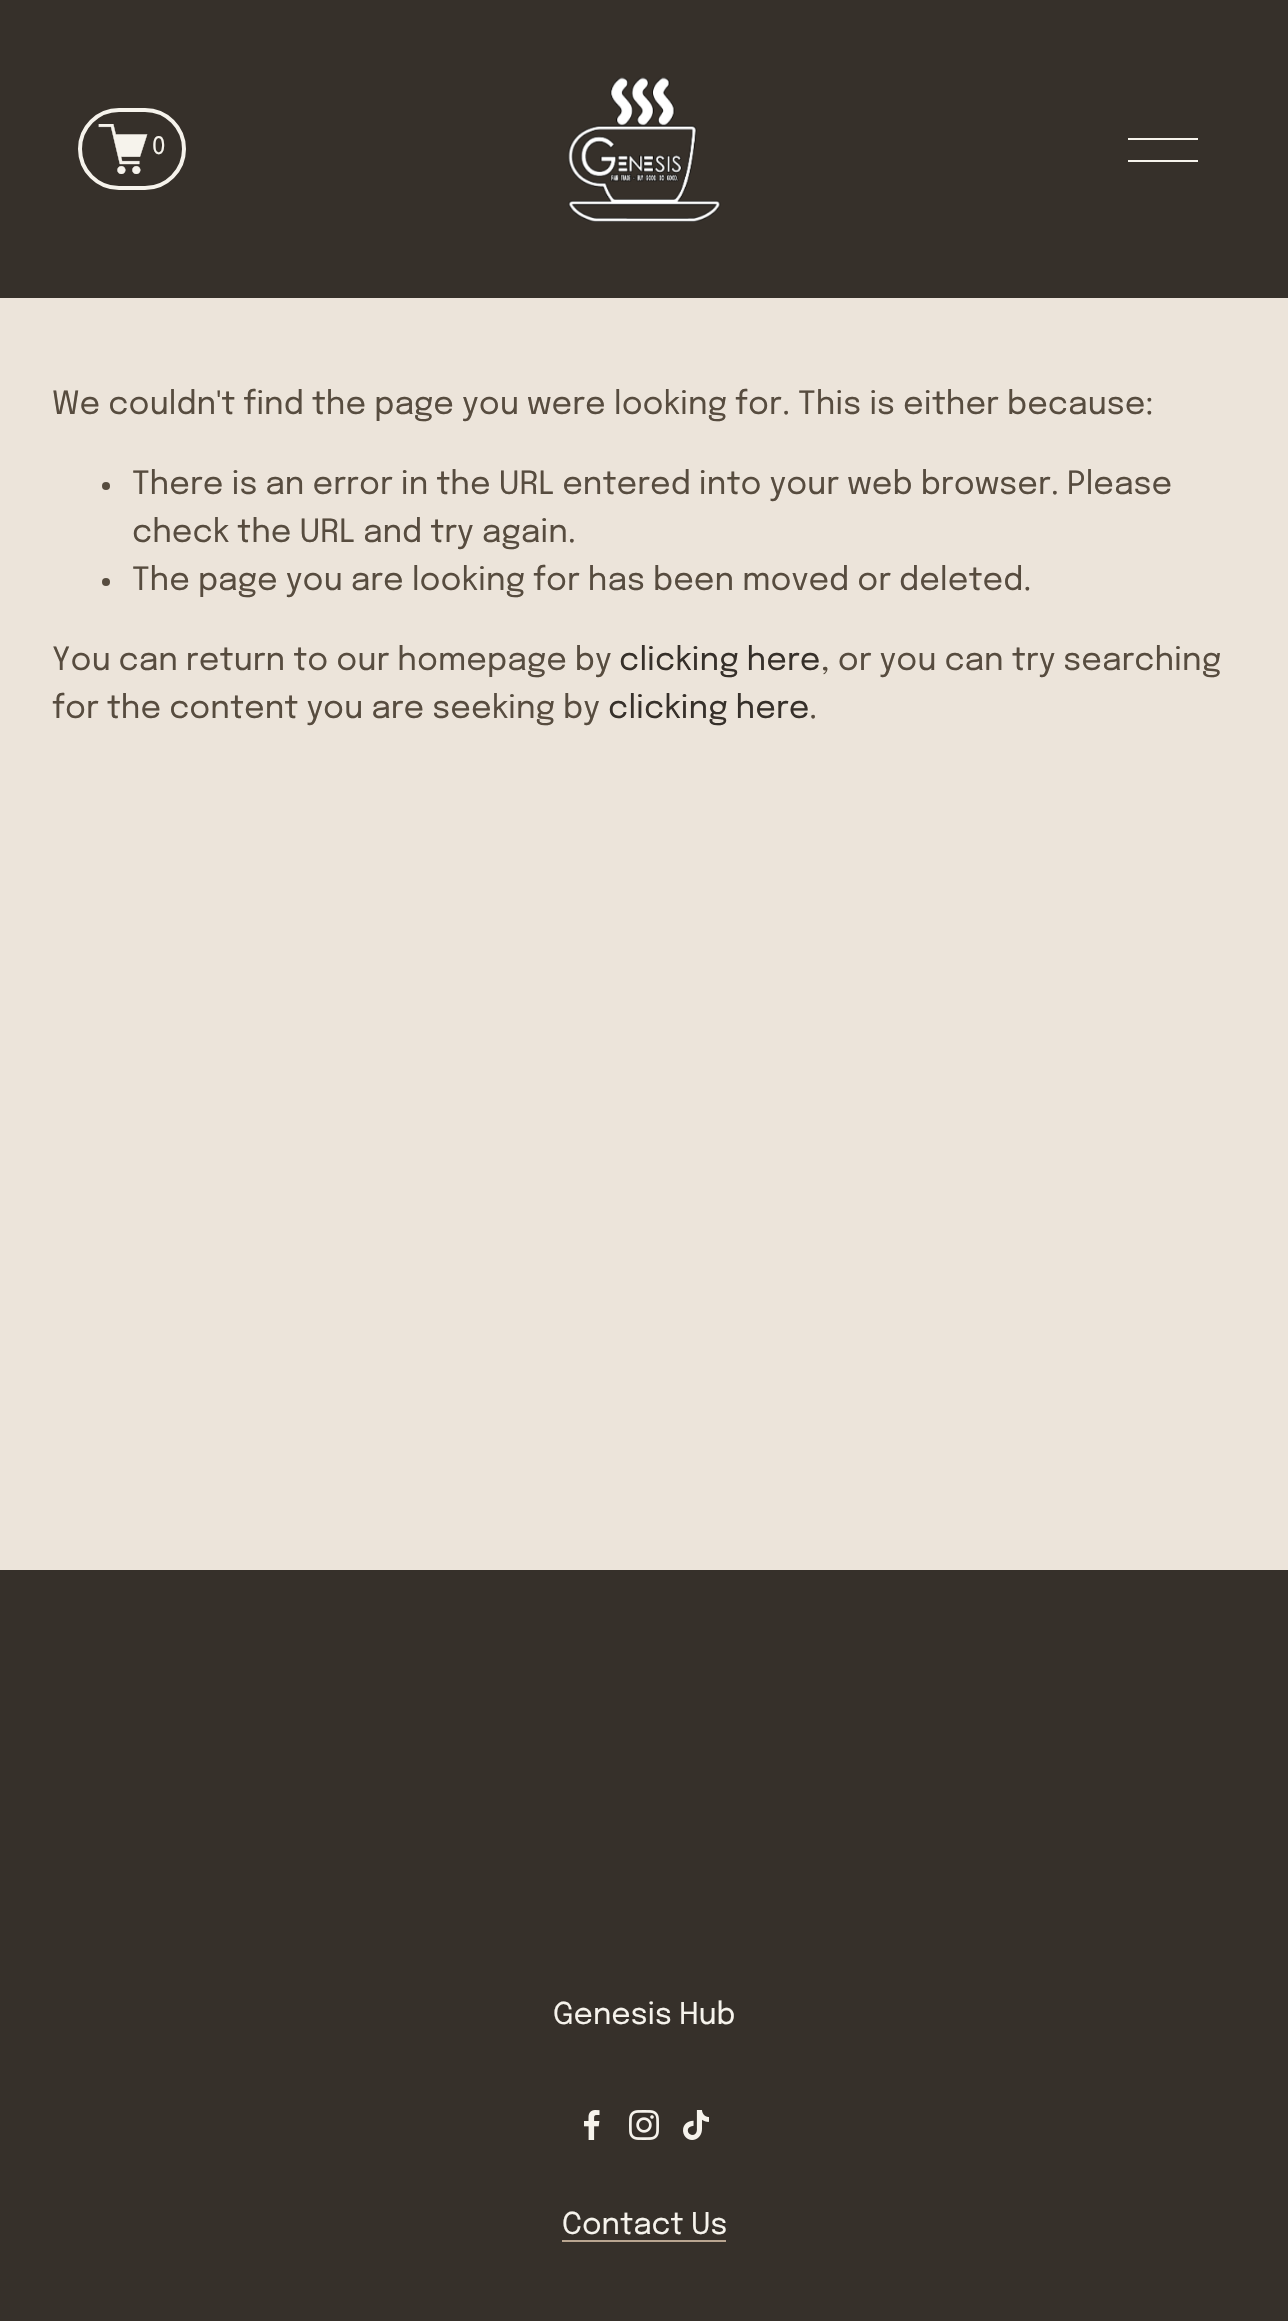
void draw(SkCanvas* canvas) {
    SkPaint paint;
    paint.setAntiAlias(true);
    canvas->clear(0xFFECE4DA);
    paint.setColor(0xFF36302A);
    canvas->drawRect(SkRect::MakeXYWH(0, 0, 1288, 298), paint);
    paint.setStyle(SkPaint::kStroke_Style);
    paint.setStrokeWidth(4);
    paint.setColor(0xFFF6F3EC);
    canvas->drawRoundRect(SkRect::MakeXYWH(80, 110, 104, 78), 39, 39, paint);
    canvas->drawImageRect(SkImages::DeferredFromEncodedData(SkData::MakeFromFileName("img1.png")), SkRect::MakeXYWH(98, 124, 50, 50), SkSamplingOptions());
    SkFont font1(fontMgr->matchFamilyStyle("Epilogue", SkFontStyle::Normal()), 24);
    font1.setSubpixel(true);
    paint.setStyle(SkPaint::kFill_Style);
    canvas->drawString("0", 152, 154, font1, paint);
    canvas->drawImageRect(SkImages::DeferredFromEncodedData(SkData::MakeFromFileName("img2.png")), SkRect::MakeXYWH(567, 77, 154, 145), SkSamplingOptions());
    canvas->drawRect(SkRect::MakeXYWH(1128, 138, 70, 2), paint);
    canvas->drawRect(SkRect::MakeXYWH(1128, 160, 70, 2), paint);
    SkFont font2(fontMgr->matchFamilyStyle("Epilogue", SkFontStyle::Normal()), 32);
    font2.setSubpixel(true);
    paint.setColor(0xFF574C3F);
    canvas->drawString("We couldn't find the page you were looking for. This is either because:", 52, 414, font2, paint);
    canvas->drawCircle(106, 486, 4, paint);
    canvas->drawString("There is an error in the URL entered into your web browser. Please", 132, 494, font2, paint);
    canvas->drawString("check the URL and try again.", 132, 542, font2, paint);
    canvas->drawCircle(106, 582, 4, paint);
    canvas->drawString("The page you are looking for has been moved or deleted.", 132, 590, font2, paint);
    canvas->drawString("You can return to our homepage by", 52, 670, font2, paint);
    paint.setColor(0xFF36302A);
    canvas->drawString("clicking here", 619, 670, font2, paint);
    paint.setColor(0xFF574C3F);
    canvas->drawString(", or you can try searching", 821, 670, font2, paint);
    canvas->drawString("for the content you are seeking by", 52, 718, font2, paint);
    paint.setColor(0xFF36302A);
    canvas->drawString("clicking here", 608, 718, font2, paint);
    paint.setColor(0xFF574C3F);
    canvas->drawString(".", 809, 718, font2, paint);
    paint.setColor(0xFF36302A);
    canvas->drawRect(SkRect::MakeXYWH(0, 1570, 1288, 751), paint);
    SkFont font3(fontMgr->matchFamilyStyle("Epilogue", SkFontStyle::Normal()), 30);
    font3.setSubpixel(true);
    paint.setColor(0xFFF6F3EC);
    canvas->drawString("Genesis Hub", 553, 2024, font3, paint);
    canvas->drawImageRect(SkImages::DeferredFromEncodedData(SkData::MakeFromFileName("img3.png")), SkRect::MakeXYWH(584, 2110, 16, 30), SkSamplingOptions());
    canvas->drawImageRect(SkImages::DeferredFromEncodedData(SkData::MakeFromFileName("img4.png")), SkRect::MakeXYWH(629, 2110, 30, 30), SkSamplingOptions());
    canvas->drawImageRect(SkImages::DeferredFromEncodedData(SkData::MakeFromFileName("img5.png")), SkRect::MakeXYWH(683, 2110, 26, 30), SkSamplingOptions());
    canvas->drawString("Contact Us", 562, 2234, font3, paint);
    paint.setColor(0xFFB9A590);
    canvas->drawRect(SkRect::MakeXYWH(562, 2240, 164, 2), paint);
}
